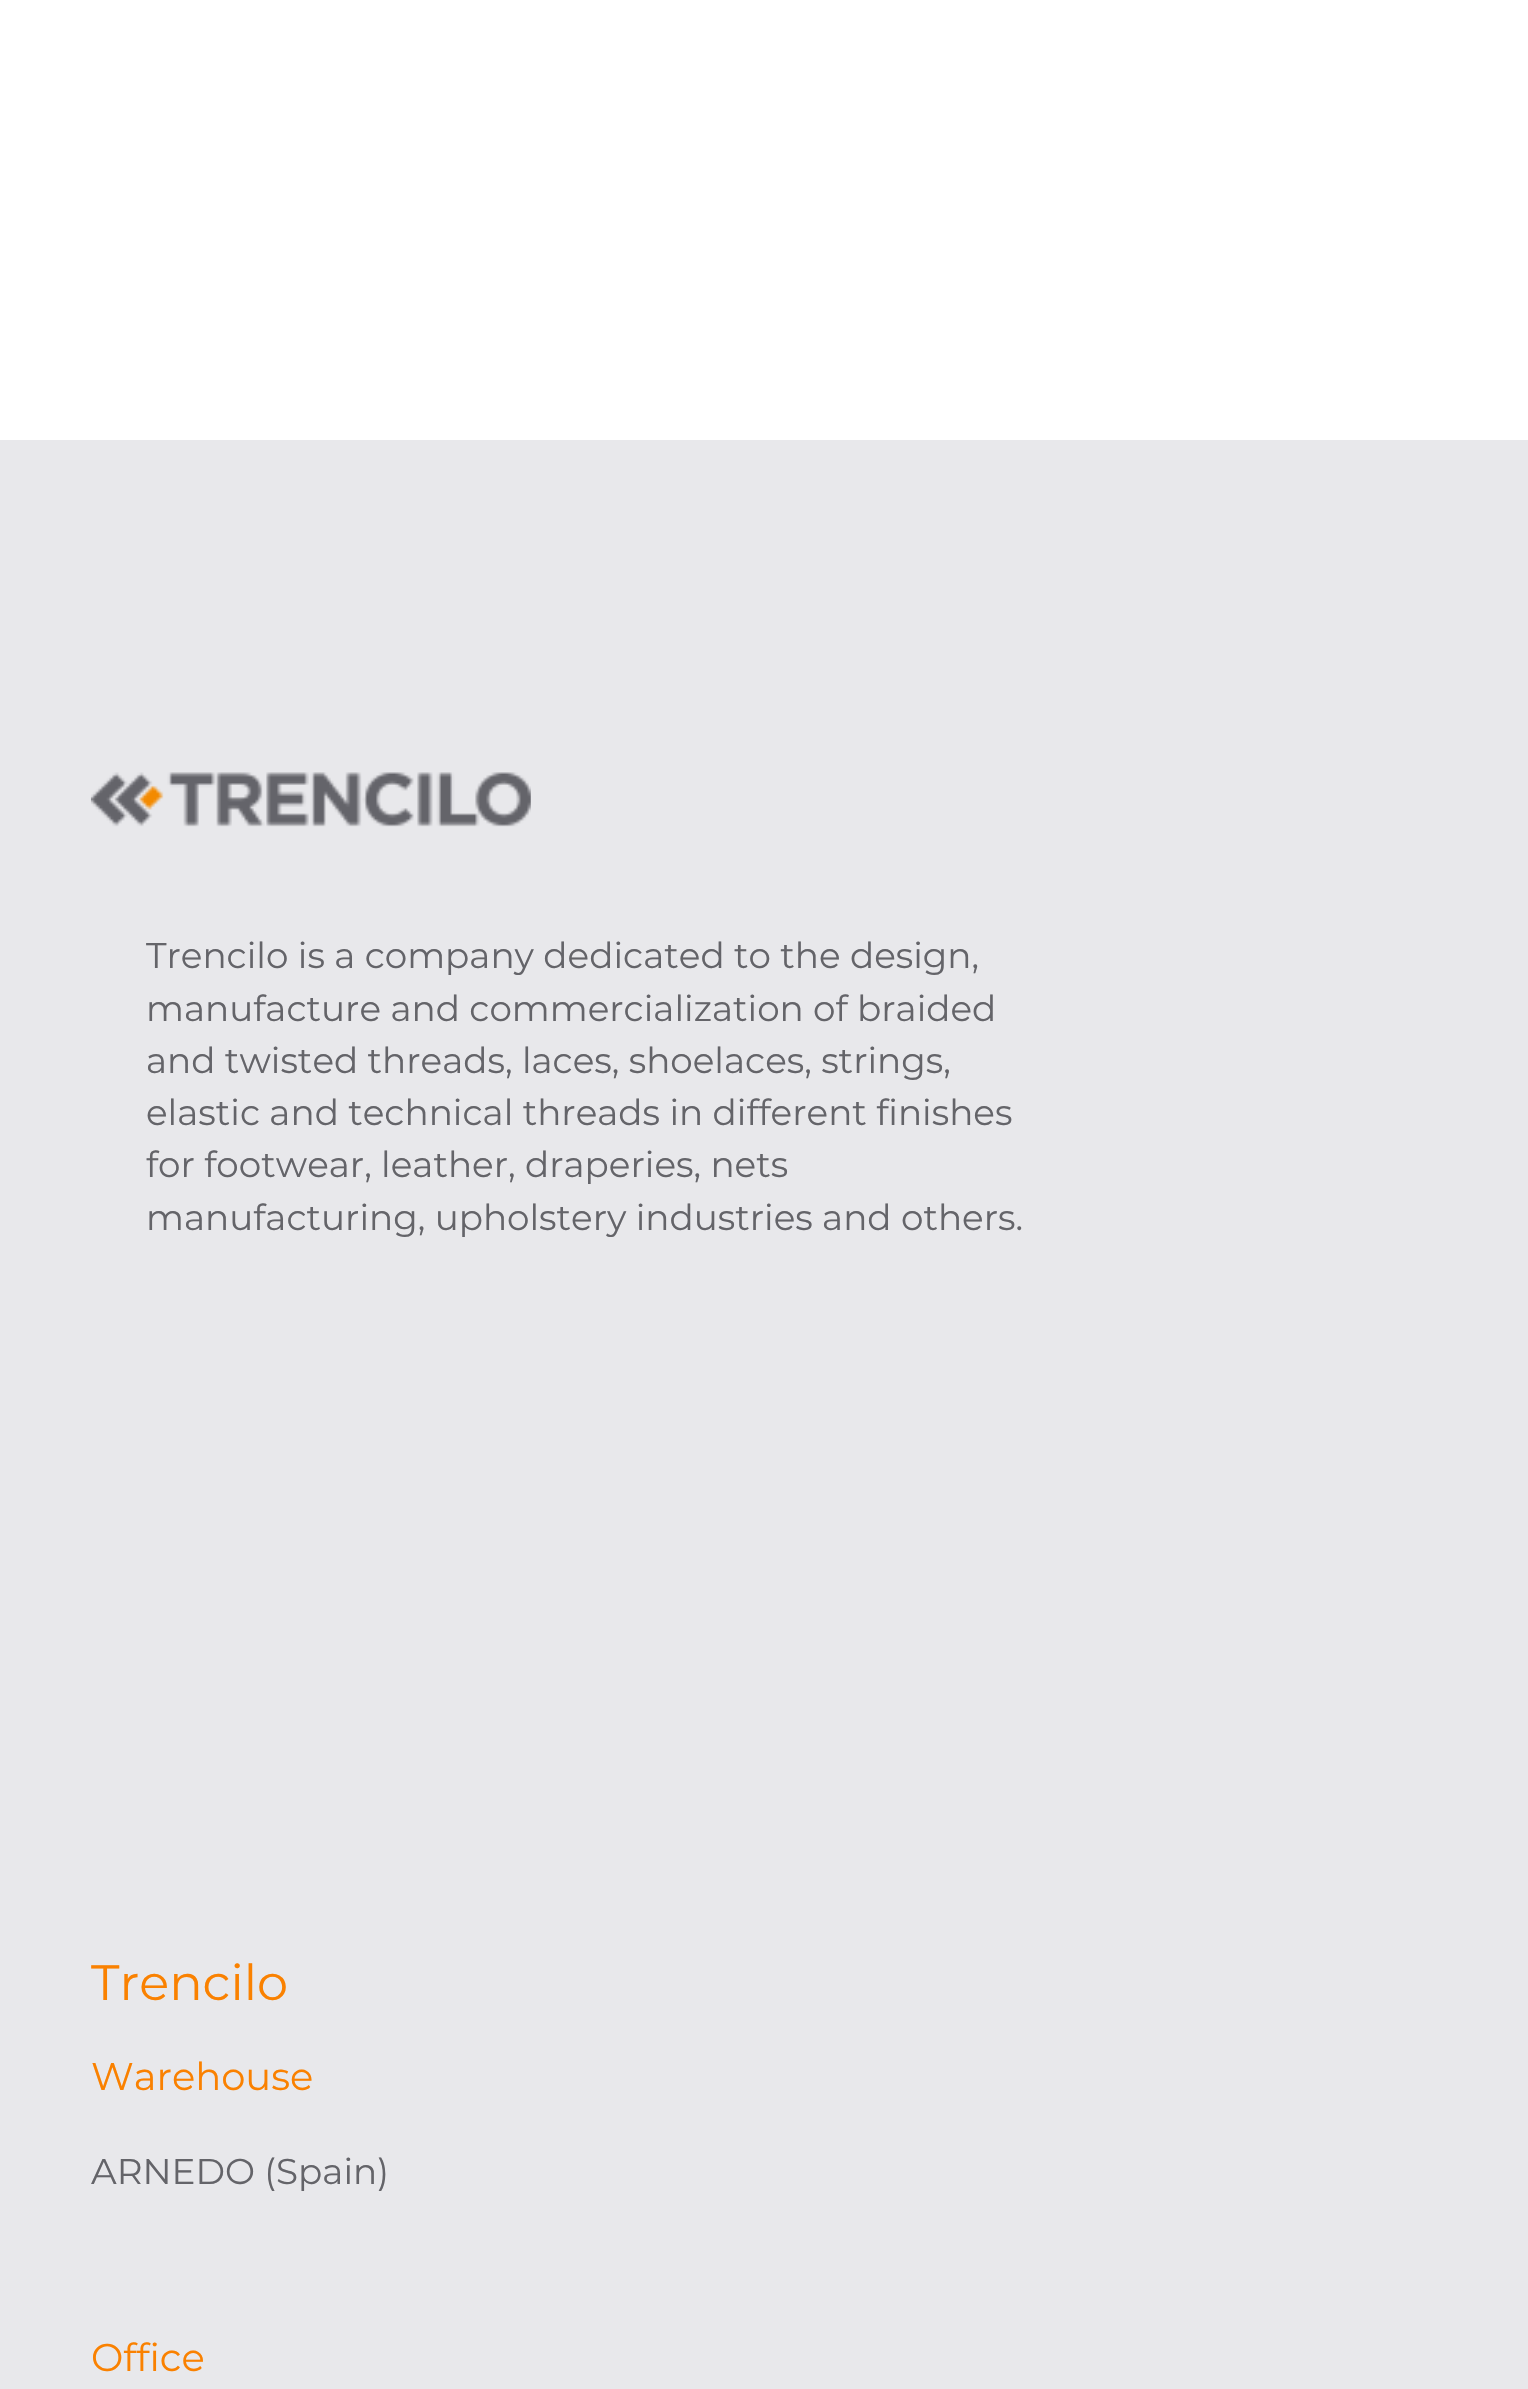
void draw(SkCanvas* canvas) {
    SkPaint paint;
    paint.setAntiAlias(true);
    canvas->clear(0xFFFFFFFF);
    paint.setColor(0xFFE8E8EB);
    canvas->drawRect(SkRect::MakeXYWH(0, 440, 1528, 1949), paint);
    canvas->drawImageRect(SkImages::DeferredFromEncodedData(SkData::MakeFromFileName("img1.png")), SkRect::MakeXYWH(90, 772, 441, 55), SkSamplingOptions());
    SkFont font1(fontMgr->matchFamilyStyle("Montserrat", SkFontStyle::Normal()), 35.75f);
    font1.setSubpixel(true);
    paint.setColor(0xFF646469);
    canvas->drawString("Trencilo is a company dedicated to the design,", 146, 968, font1, paint);
    canvas->drawString("manufacture and commercialization of braided", 146, 1021, font1, paint);
    canvas->drawString("and twisted threads, laces, shoelaces, strings,", 146, 1073, font1, paint);
    canvas->drawString("elastic and technical threads in different finishes", 146, 1125, font1, paint);
    canvas->drawString("for footwear, leather, draperies, nets", 146, 1177, font1, paint);
    canvas->drawString("manufacturing, upholstery industries and others.", 146, 1230, font1, paint);
    SkFont font2(fontMgr->matchFamilyStyle("Montserrat", SkFontStyle::Normal()), 49.5f);
    font2.setSubpixel(true);
    paint.setColor(0xFFFA8100);
    canvas->drawString("Trencilo", 91, 2000, font2, paint);
    SkFont font3(fontMgr->matchFamilyStyle("Montserrat", SkFontStyle::Normal()), 38.5f);
    font3.setSubpixel(true);
    canvas->drawString("Warehouse", 91, 2090, font3, paint);
    paint.setColor(0xFF646469);
    canvas->drawString("ARNEDO (Spain)", 91, 2184, font1, paint);
    paint.setColor(0xFFFA8100);
    canvas->drawString("Office", 91, 2371, font3, paint);
}
